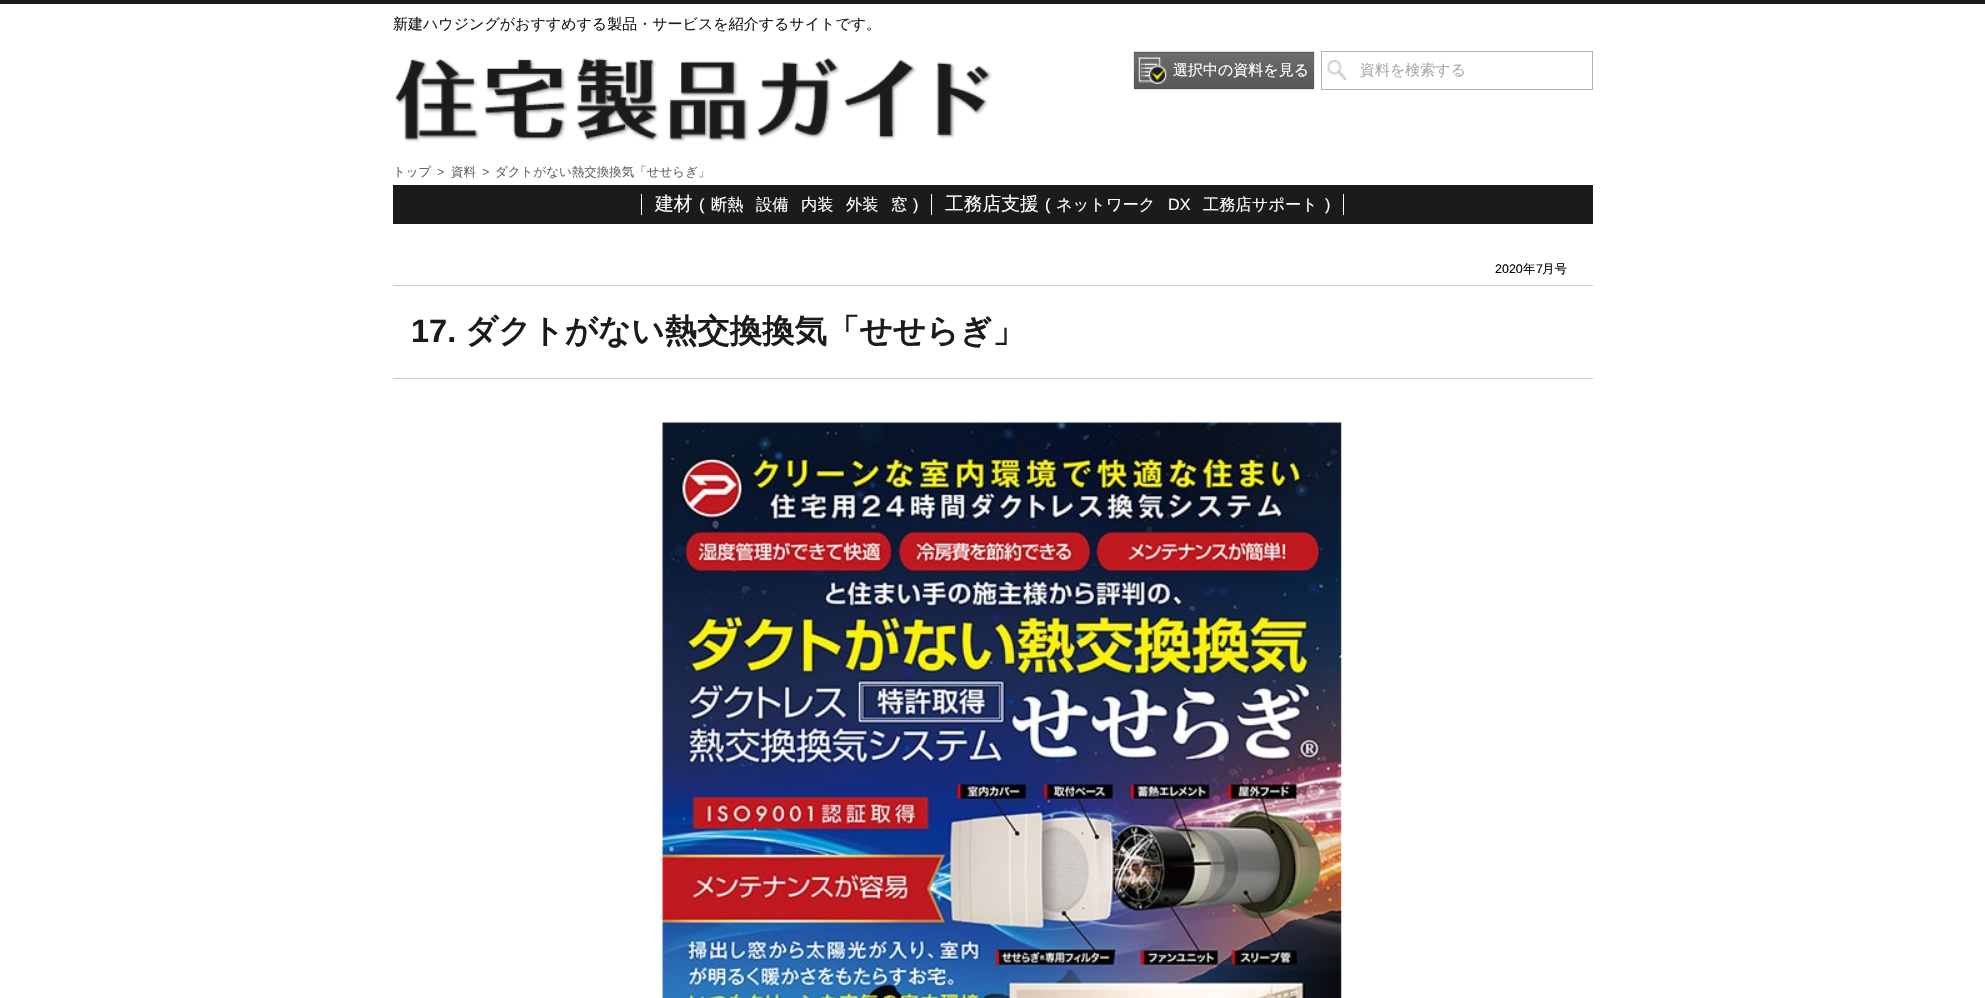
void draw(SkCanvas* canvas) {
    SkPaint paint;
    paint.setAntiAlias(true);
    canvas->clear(0xFFFFFFFF);
    paint.setColor(0xFF1B1B1B);
    canvas->drawRect(SkRect::MakeXYWH(0, 0, 1985, 4), paint);
    SkFont font1(fontMgr->matchFamilyStyle("WenQuanYi Zen Hei", SkFontStyle(500, SkFontStyle::kNormal_Width, SkFontStyle::kUpright_Slant)), 15);
    font1.setSubpixel(true);
    canvas->drawString("新建ハウジングがおすすめする製品・サービスを紹介するサイトです。", 393, 29, font1, paint);
    canvas->drawImageRect(SkImages::DeferredFromEncodedData(SkData::MakeFromFileName("img1.png")), SkRect::MakeXYWH(395, 57, 597, 85), SkSamplingOptions());
    {
        const SkColor colors[] = {0xFF6D6D6D, 0xFF565656};
        const float stops[] = {0, 1};
        const SkPoint ends[] = {{1224, 16}, {1224, 53}};
        paint.setShader(SkGradientShader::MakeLinear(ends, colors, stops, 2, SkTileMode::kClamp));
        paint.setAlpha(255);
    }
    canvas->drawRect(SkRect::MakeXYWH(1133, 52, 182, 1), paint);
    {
        const SkColor colors[] = {0xFF6D6D6D, 0xFF565656};
        const float stops[] = {0, 1};
        const SkPoint ends[] = {{1224, 52}, {1224, 89}};
        paint.setShader(SkGradientShader::MakeLinear(ends, colors, stops, 2, SkTileMode::kClamp));
        paint.setAlpha(255);
    }
    canvas->drawRect(SkRect::MakeXYWH(1134, 53, 180, 36), paint);
    paint.setStyle(SkPaint::kStroke_Style);
    paint.setStrokeWidth(1);
    paint.setShader(nullptr);
    paint.setColor(0xFFE6E6E6);
    canvas->drawRect(SkRect::MakeXYWH(1133.5f, 51.5f, 181, 38), paint);
    canvas->drawImageRect(SkImages::DeferredFromEncodedData(SkData::MakeFromFileName("img2.png")), SkRect::MakeXYWH(1138, 57, 29, 27), SkSamplingOptions());
    paint.setStyle(SkPaint::kFill_Style);
    paint.setColor(0xFFFFFFFF);
    canvas->drawString("選択中の資料を見る", 1173, 75, font1, paint);
    paint.setStyle(SkPaint::kStroke_Style);
    paint.setColor(0xFFB3B3B3);
    canvas->drawRect(SkRect::MakeXYWH(1321.5f, 51.5f, 271, 38), paint);
    canvas->drawImageRect(SkImages::DeferredFromEncodedData(SkData::MakeFromFileName("img3.png")), SkRect::MakeXYWH(1327, 60, 20, 20), SkSamplingOptions());
    paint.setStyle(SkPaint::kFill_Style);
    paint.setColor(0xFFAAAAAA);
    canvas->drawString("資料を検索する", 1360, 75, font1, paint);
    SkFont font2(fontMgr->matchFamilyStyle("WenQuanYi Zen Hei", SkFontStyle(500, SkFontStyle::kNormal_Width, SkFontStyle::kUpright_Slant)), 12.5f);
    font2.setSubpixel(true);
    paint.setColor(0xFF666666);
    canvas->drawString("トップ", 393, 176, font2, paint);
    SkFont font3(fontMgr->matchFamilyStyle("Liberation Sans", SkFontStyle::Normal()), 12.5f);
    font3.setSubpixel(true);
    canvas->drawString(">", 437, 176, font3, paint);
    canvas->drawString("資料", 451, 176, font2, paint);
    canvas->drawString(">", 482, 176, font3, paint);
    canvas->drawString("ダクトがない熱交換換気「せせらぎ」", 495, 176, font2, paint);
    paint.setColor(0xFF1B1B1B);
    canvas->drawRect(SkRect::MakeXYWH(393, 185, 1200, 39), paint);
    paint.setColor(0xFFFFFFFF);
    canvas->drawRect(SkRect::MakeXYWH(931, 194, 1, 21), paint);
    canvas->drawRect(SkRect::MakeXYWH(641, 194, 1, 21), paint);
    SkFont font4(fontMgr->matchFamilyStyle("WenQuanYi Zen Hei", SkFontStyle(500, SkFontStyle::kNormal_Width, SkFontStyle::kUpright_Slant)), 18.75f);
    font4.setSubpixel(true);
    canvas->drawString("建材", 655, 210, font4, paint);
    SkFont font5(fontMgr->matchFamilyStyle("Liberation Sans", SkFontStyle::Normal()), 16.25f);
    font5.setSubpixel(true);
    canvas->drawString("(", 699, 210, font5, paint);
    SkFont font6(fontMgr->matchFamilyStyle("WenQuanYi Zen Hei", SkFontStyle(500, SkFontStyle::kNormal_Width, SkFontStyle::kUpright_Slant)), 16.25f);
    font6.setSubpixel(true);
    canvas->drawString("断熱", 711, 210, font6, paint);
    canvas->drawString("設備", 756, 210, font6, paint);
    canvas->drawString("内装", 801, 210, font6, paint);
    canvas->drawString("外装", 846, 210, font6, paint);
    canvas->drawString("窓", 891, 210, font6, paint);
    canvas->drawString(")", 913, 210, font5, paint);
    canvas->drawRect(SkRect::MakeXYWH(1343, 194, 1, 21), paint);
    canvas->drawString("工務店支援", 945, 210, font4, paint);
    canvas->drawString("(", 1045, 210, font5, paint);
    canvas->drawString("ネットワーク", 1056, 210, font6, paint);
    canvas->drawString("DX", 1168, 210, font5, paint);
    canvas->drawString("工務店サポート", 1203, 210, font6, paint);
    canvas->drawString(")", 1325, 210, font5, paint);
    paint.setColor(0xFF000000);
    canvas->drawString("2020", 1495, 273, font3, paint);
    canvas->drawString("年", 1523, 273, font2, paint);
    canvas->drawString("7", 1536, 273, font3, paint);
    canvas->drawString("月号", 1542, 273, font2, paint);
    paint.setColor(0xFFCCCCCC);
    canvas->drawRect(SkRect::MakeXYWH(393, 285, 1200, 1), paint);
    canvas->drawRect(SkRect::MakeXYWH(393, 378, 1200, 1), paint);
    SkFont font7(fontMgr->matchFamilyStyle("Liberation Sans", SkFontStyle::Bold()), 32.5f);
    font7.setSubpixel(true);
    paint.setColor(0xFF1B1B1B);
    canvas->drawString("17.", 411, 342, font7, paint);
    SkFont font8(fontMgr->matchFamilyStyle("WenQuanYi Zen Hei", SkFontStyle::Bold()), 32.5f);
    font8.setSubpixel(true);
    canvas->drawString("ダクトがない熱交換換気「せせらぎ」", 465, 342, font8, paint);
    canvas->drawImageRect(SkImages::DeferredFromEncodedData(SkData::MakeFromFileName("img4.png")), SkRect::MakeXYWH(662, 422, 680, 576), SkSamplingOptions());
}
